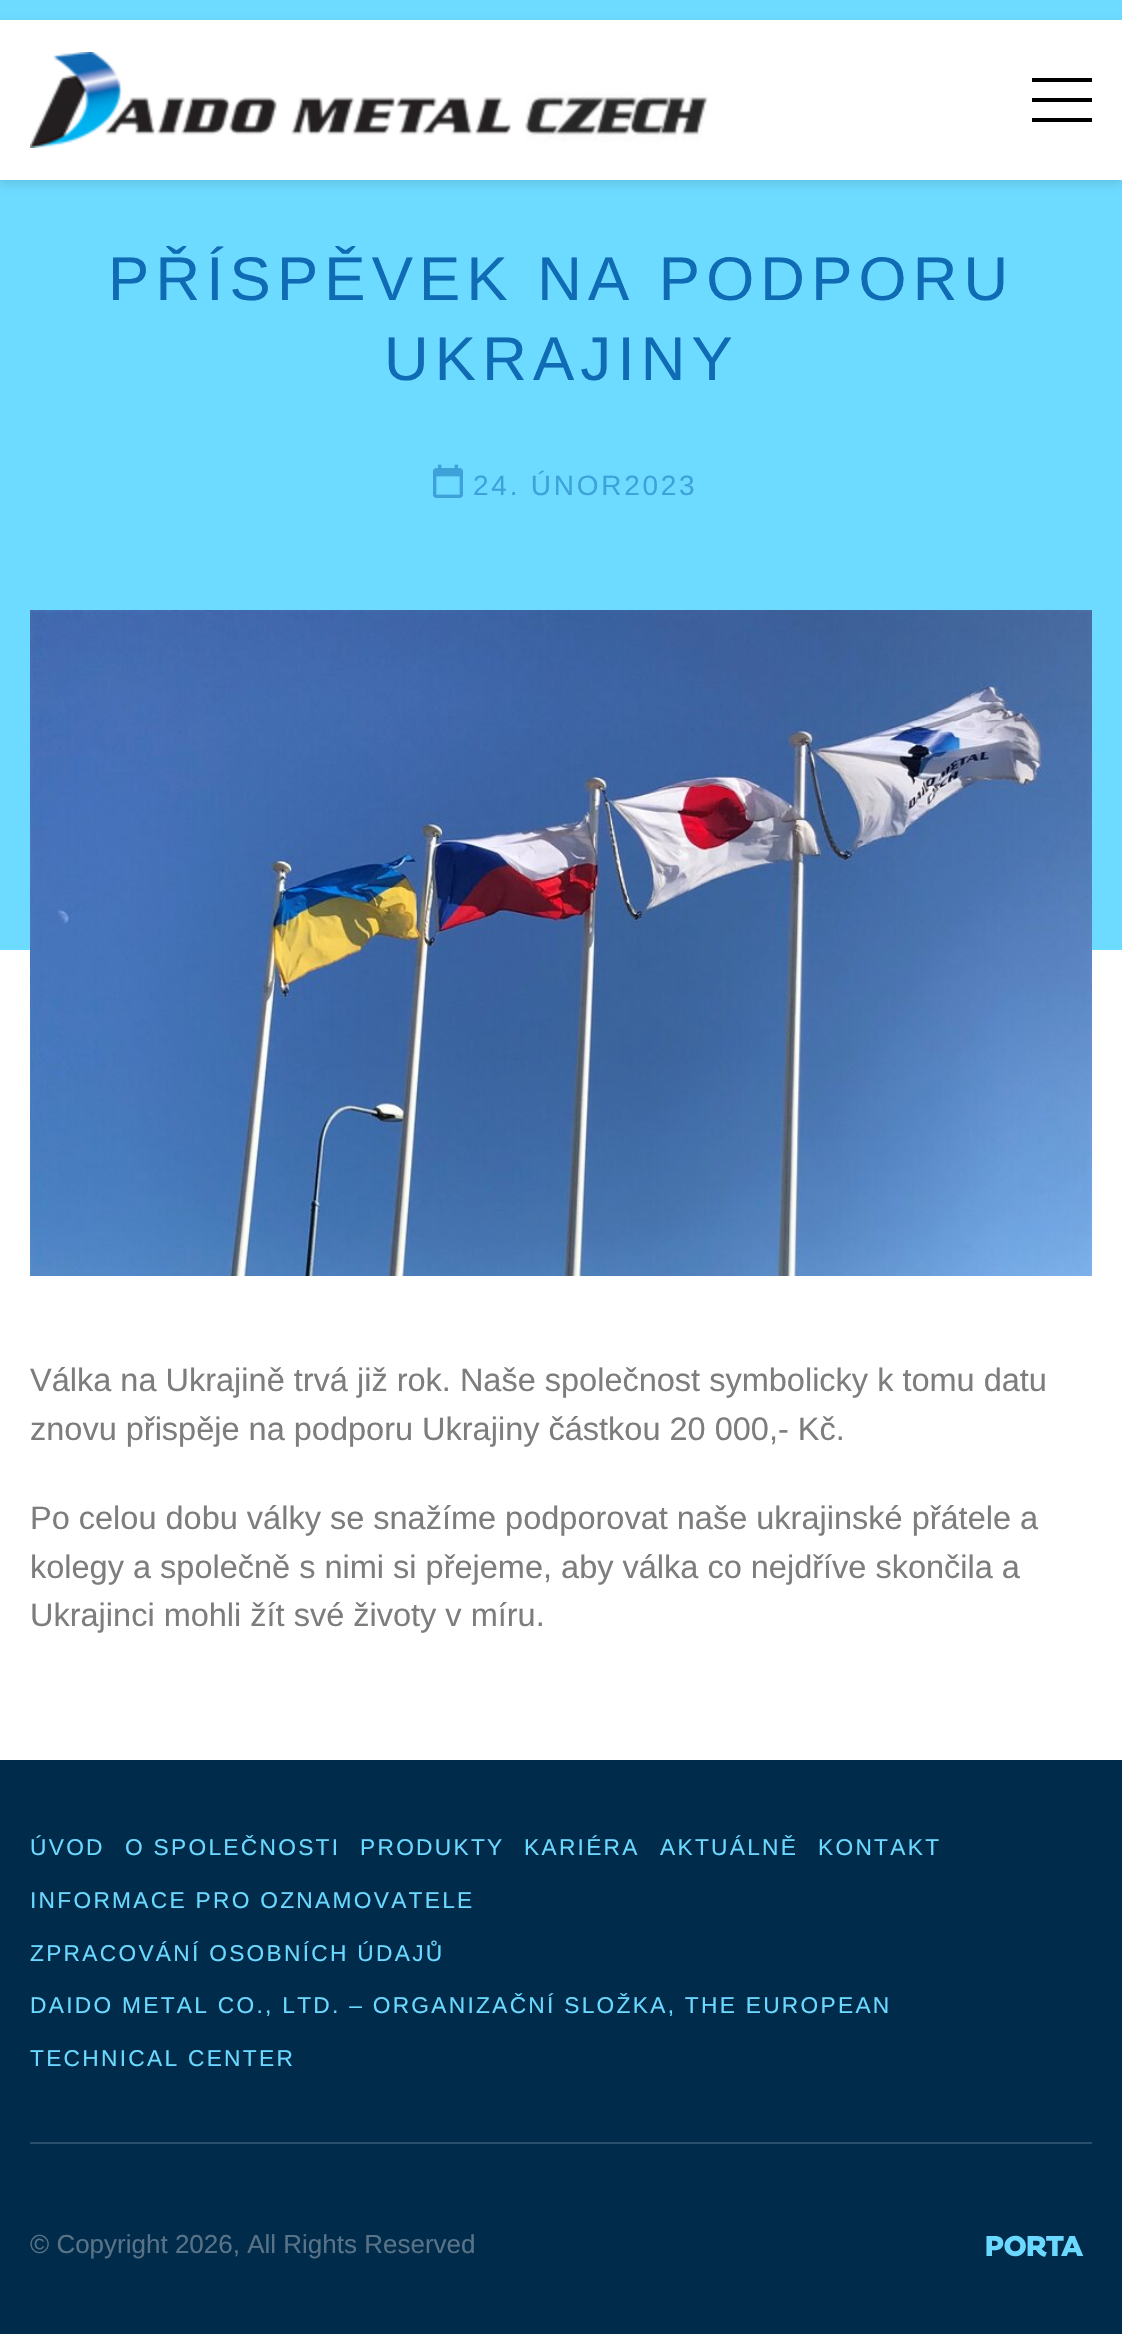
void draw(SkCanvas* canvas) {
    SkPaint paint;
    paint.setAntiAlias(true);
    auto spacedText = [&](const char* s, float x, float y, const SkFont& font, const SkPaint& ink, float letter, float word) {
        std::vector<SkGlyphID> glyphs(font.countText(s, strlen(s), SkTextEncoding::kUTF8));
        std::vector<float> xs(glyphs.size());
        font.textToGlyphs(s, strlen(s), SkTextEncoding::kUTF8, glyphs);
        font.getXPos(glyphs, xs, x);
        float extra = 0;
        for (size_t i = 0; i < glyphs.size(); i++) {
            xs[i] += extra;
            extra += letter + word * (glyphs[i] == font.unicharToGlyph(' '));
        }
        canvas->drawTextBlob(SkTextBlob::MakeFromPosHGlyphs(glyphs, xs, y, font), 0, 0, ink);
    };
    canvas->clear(0xFFFFFFFF);
    paint.setColor(0xFF6DDAFF);
    canvas->drawRect(SkRect::MakeXYWH(0, 0, 1122, 950), paint);
    paint.setColor(0x1A000000);
    paint.setMaskFilter(SkMaskFilter::MakeBlur(kNormal_SkBlurStyle, 4));
    canvas->drawRect(SkRect::MakeXYWH(0, 24, 1122, 160), paint);
    paint.setMaskFilter(nullptr);
    paint.setColor(0xFFFFFFFF);
    canvas->drawRect(SkRect::MakeXYWH(0, 20, 1122, 160), paint);
    canvas->drawImageRect(SkImages::DeferredFromEncodedData(SkData::MakeFromFileName("img1.png")), SkRect::MakeXYWH(30, 52, 679, 96), SkSamplingOptions());
    paint.setColor(0xFF000000);
    canvas->drawRect(SkRect::MakeXYWH(1032, 78, 60, 4), paint);
    canvas->drawRect(SkRect::MakeXYWH(1032, 98, 60, 4), paint);
    canvas->drawRect(SkRect::MakeXYWH(1032, 118, 60, 4), paint);
    SkFont font1(fontMgr->matchFamilyStyle("Liberation Sans", SkFontStyle::Normal()), 61.75f);
    font1.setSubpixel(true);
    paint.setColor(0xFF0E6BB4);
    spacedText("PŘÍSPĚVEK NA PODPORU", 108, 300, font1, paint, 6.2f, 0);
    spacedText("UKRAJINY", 384, 380, font1, paint, 6.2f, 0);
    canvas->drawImageRect(SkImages::DeferredFromEncodedData(SkData::MakeFromFileName("img2.png")), SkRect::MakeXYWH(433, 464, 30, 34), SkSamplingOptions());
    SkFont font2(fontMgr->matchFamilyStyle("Liberation Sans", SkFontStyle::Normal()), 28);
    font2.setSubpixel(true);
    paint.setColor(0xFF3DA2D9);
    spacedText("24. ÚNOR2023", 473, 495, font2, paint, 2.75f, 0);
    canvas->drawImageRect(SkImages::DeferredFromEncodedData(SkData::MakeFromFileName("img3.png")), SkRect::MakeXYWH(30, 610, 1062, 666), SkSamplingOptions());
    SkFont font3(fontMgr->matchFamilyStyle("Liberation Sans", SkFontStyle::Normal()), 32.5f);
    font3.setSubpixel(true);
    paint.setColor(0xFF7E7D7D);
    canvas->drawString("Válka na Ukrajině trvá již rok. Naše společnost symbolicky k tomu datu", 30, 1391, font3, paint);
    canvas->drawString("znovu přispěje na podporu Ukrajiny částkou 20 000,- Kč.", 30, 1440, font3, paint);
    canvas->drawString("Po celou dobu války se snažíme podporovat naše ukrajinské přátele a", 30, 1529, font3, paint);
    canvas->drawString("kolegy a společně s nimi si přejeme, aby válka co nejdříve skončila a", 30, 1578, font3, paint);
    canvas->drawString("Ukrajinci mohli žít své životy v míru.", 30, 1626, font3, paint);
    paint.setColor(0xFF012B4B);
    canvas->drawRect(SkRect::MakeXYWH(0, 1760, 1122, 574), paint);
    SkFont font4(fontMgr->matchFamilyStyle("Liberation Sans", SkFontStyle::Normal()), 22.75f);
    font4.setSubpixel(true);
    paint.setColor(0xFF6BD9FF);
    spacedText("ÚVOD", 30, 1855, font4, paint, 2.27f, 0);
    spacedText("O SPOLEČNOSTI", 125, 1855, font4, paint, 2.27f, 0);
    spacedText("PRODUKTY", 360, 1855, font4, paint, 2.27f, 0);
    spacedText("KARIÉRA", 524, 1855, font4, paint, 2.27f, 0);
    spacedText("AKTUÁLNĚ", 660, 1855, font4, paint, 2.27f, 0);
    spacedText("KONTAKT", 818, 1855, font4, paint, 2.27f, 0);
    spacedText("INFORMACE PRO OZNAMOVATELE", 30, 1908, font4, paint, 2.27f, 0);
    spacedText("ZPRACOVÁNÍ OSOBNÍCH ÚDAJŮ", 30, 1961, font4, paint, 2.27f, 0);
    spacedText("DAIDO METAL CO., LTD. – ORGANIZAČNÍ SLOŽKA, THE EUROPEAN", 30, 2013, font4, paint, 2.27f, 0);
    spacedText("TECHNICAL CENTER", 30, 2066, font4, paint, 2.27f, 0);
    paint.setColor(0xFF2A4F6C);
    canvas->drawRect(SkRect::MakeXYWH(30, 2142, 1062, 2), paint);
    SkFont font5(fontMgr->matchFamilyStyle("Liberation Sans", SkFontStyle::Normal()), 26);
    font5.setSubpixel(true);
    paint.setColor(0xFF587388);
    canvas->drawString("© Copyright 2026, All Rights Reserved", 30, 2253, font5, paint);
    canvas->drawImageRect(SkImages::DeferredFromEncodedData(SkData::MakeFromFileName("img4.png")), SkRect::MakeXYWH(986, 2235, 98, 22), SkSamplingOptions());
}
